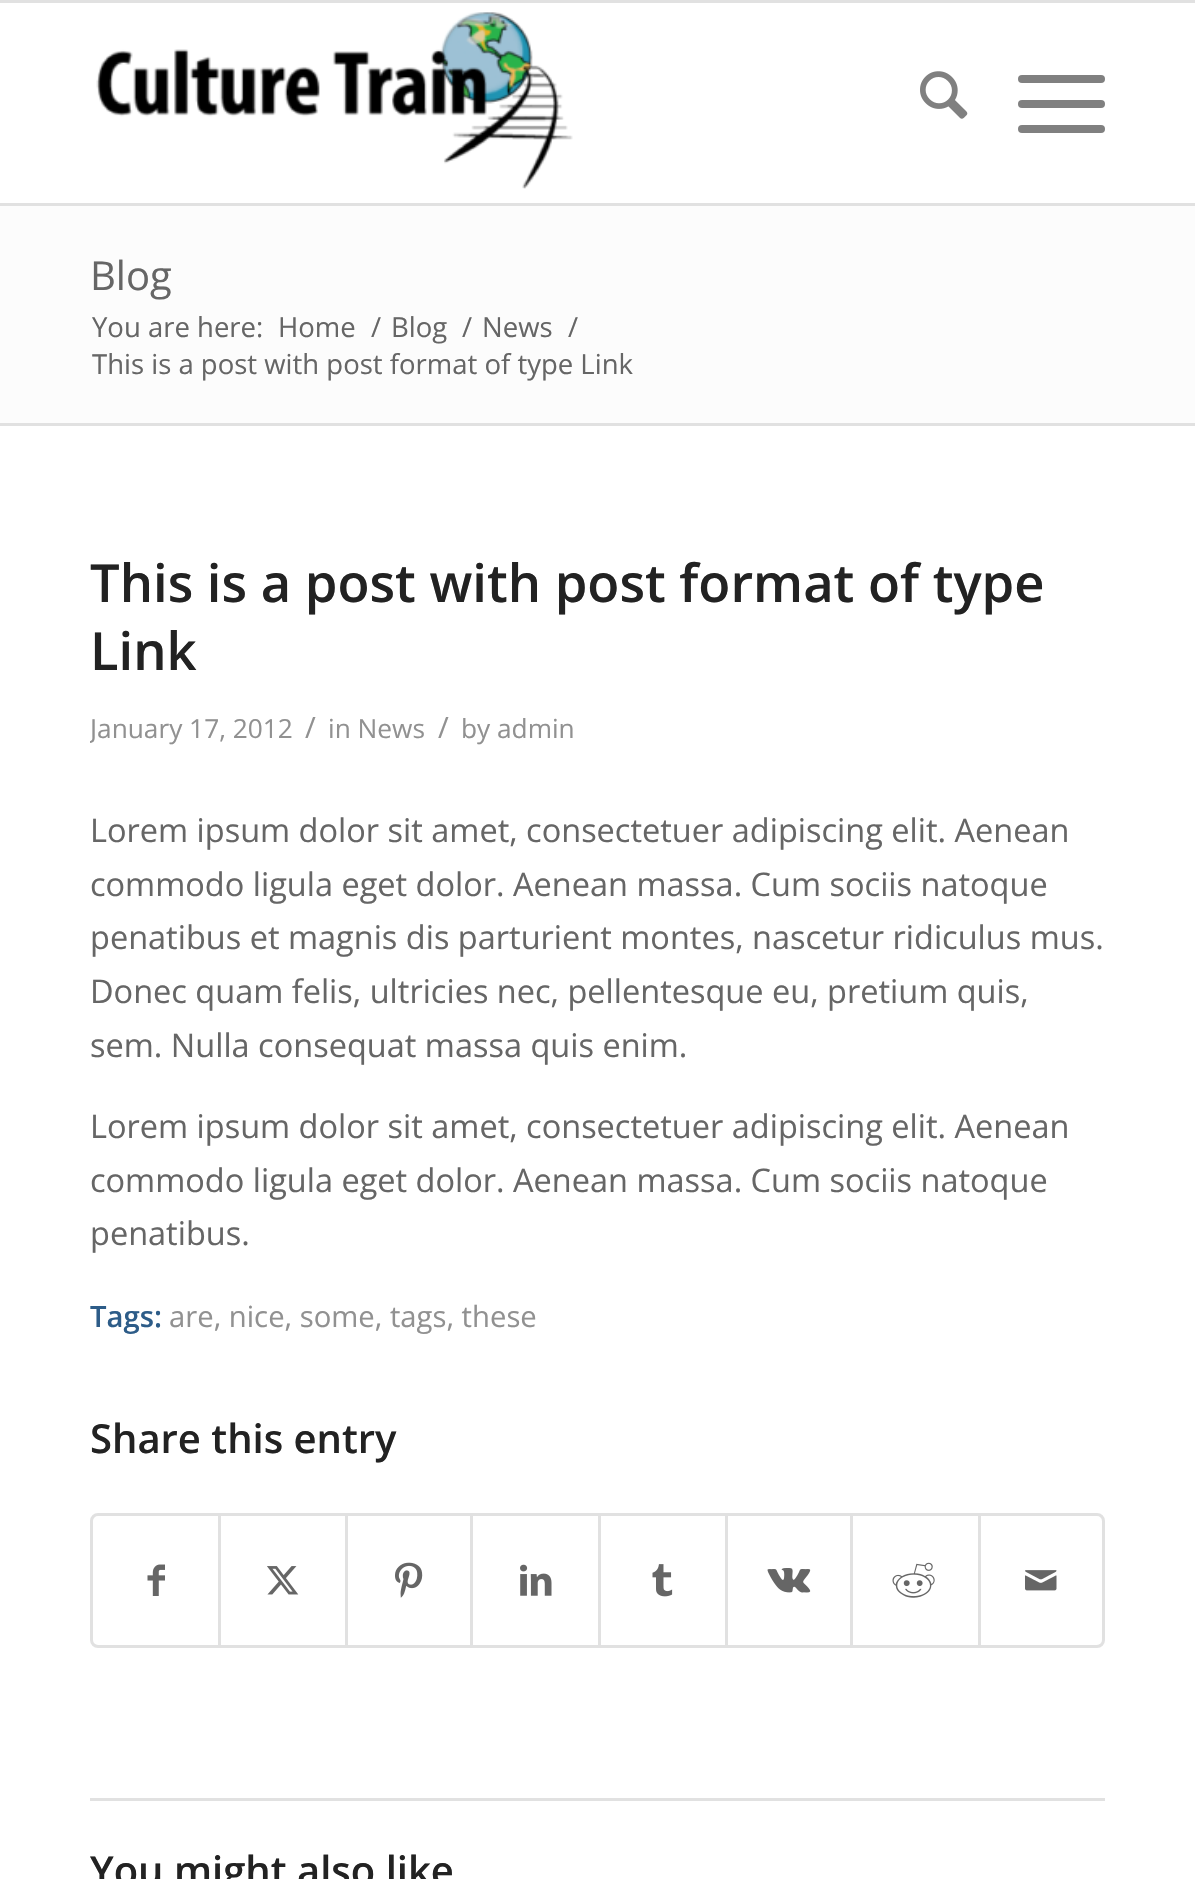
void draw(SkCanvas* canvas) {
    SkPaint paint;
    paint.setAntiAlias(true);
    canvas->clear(0xFFFFFFFF);
    paint.setColor(0xFFE1E1E1);
    canvas->drawRect(SkRect::MakeXYWH(0, 0, 1195, 3), paint);
    canvas->drawRect(SkRect::MakeXYWH(0, 203, 1195, 3), paint);
    canvas->drawImageRect(SkImages::DeferredFromEncodedData(SkData::MakeFromFileName("img1.png")), SkRect::MakeXYWH(96, 12, 477, 177), SkSamplingOptions());
    canvas->drawImageRect(SkImages::DeferredFromEncodedData(SkData::MakeFromFileName("img2.png")), SkRect::MakeXYWH(920, 71, 48, 48), SkSamplingOptions());
    paint.setColor(0xFF808080);
    canvas->drawRoundRect(SkRect::MakeXYWH(1018, 100, 87, 8), 4, 4, paint);
    canvas->drawRoundRect(SkRect::MakeXYWH(1018, 75, 87, 8), 4, 4, paint);
    canvas->drawRoundRect(SkRect::MakeXYWH(1018, 125, 87, 8), 4, 4, paint);
    paint.setColor(0xFFFCFCFC);
    canvas->drawRect(SkRect::MakeXYWH(0, 206, 1195, 217), paint);
    SkFont font1(fontMgr->matchFamilyStyle("Open Sans", SkFontStyle::Normal()), 40);
    font1.setSubpixel(true);
    paint.setColor(0xFF666666);
    canvas->drawString("Blog", 90, 290, font1, paint);
    SkFont font2(fontMgr->matchFamilyStyle("Open Sans", SkFontStyle::Normal()), 27.5f);
    font2.setSubpixel(true);
    canvas->drawString("You are here:", 92, 337, font2, paint);
    canvas->drawString("Home", 278, 337, font2, paint);
    canvas->drawString("/", 371, 337, font2, paint);
    canvas->drawString("Blog", 391, 337, font2, paint);
    canvas->drawString("/", 462, 337, font2, paint);
    canvas->drawString("News", 482, 337, font2, paint);
    canvas->drawString("/", 568, 337, font2, paint);
    canvas->drawString("This is a post with post format of type Link", 92, 374, font2, paint);
    paint.setColor(0xFFE1E1E1);
    canvas->drawRect(SkRect::MakeXYWH(0, 423, 1195, 3), paint);
    SkFont font3(fontMgr->matchFamilyStyle("Open Sans", SkFontStyle(600, SkFontStyle::kNormal_Width, SkFontStyle::kUpright_Slant)), 52.5f);
    font3.setSubpixel(true);
    paint.setColor(0xFF222222);
    canvas->drawString("This is a post with post format of type", 90, 602, font3, paint);
    canvas->drawString("Link", 90, 670, font3, paint);
    canvas->save();
    canvas->clipRect(SkRect::MakeXYWH(90, 550, 1015, 1248));
    SkFont font4(fontMgr->matchFamilyStyle("Open Sans", SkFontStyle::Normal()), 26.25f);
    font4.setSubpixel(true);
    paint.setColor(0xFF919191);
    canvas->drawString("January 17, 2012", 90, 738, font4, paint);
    canvas->restore();
    SkFont font5(fontMgr->matchFamilyStyle("Open Sans", SkFontStyle::Normal()), 29.25f);
    font5.setSubpixel(true);
    canvas->drawString("/", 305, 738, font5, paint);
    canvas->drawString("in News", 328, 738, font4, paint);
    canvas->drawString("/", 438, 738, font5, paint);
    canvas->drawString("by admin", 461, 738, font4, paint);
    SkFont font6(fontMgr->matchFamilyStyle("Open Sans", SkFontStyle::Normal()), 32.5f);
    font6.setSubpixel(true);
    paint.setColor(0xFF666666);
    canvas->drawString("Lorem ipsum dolor sit amet, consectetuer adipiscing elit. Aenean", 90, 842, font6, paint);
    canvas->drawString("commodo ligula eget dolor. Aenean massa. Cum sociis natoque", 90, 896, font6, paint);
    canvas->drawString("penatibus et magnis dis parturient montes, nascetur ridiculus mus.", 90, 949, font6, paint);
    canvas->drawString("Donec quam felis, ultricies nec, pellentesque eu, pretium quis,", 90, 1003, font6, paint);
    canvas->drawString("sem. Nulla consequat massa quis enim.", 90, 1057, font6, paint);
    canvas->drawString("Lorem ipsum dolor sit amet, consectetuer adipiscing elit. Aenean", 90, 1138, font6, paint);
    canvas->drawString("commodo ligula eget dolor. Aenean massa. Cum sociis natoque", 90, 1192, font6, paint);
    canvas->drawString("penatibus.", 90, 1245, font6, paint);
    SkFont font7(fontMgr->matchFamilyStyle("Open Sans", SkFontStyle(600, SkFontStyle::kNormal_Width, SkFontStyle::kUpright_Slant)), 29.25f);
    font7.setSubpixel(true);
    paint.setColor(0xFF2D5C88);
    canvas->drawString("Tags:", 90, 1327, font7, paint);
    paint.setColor(0xFF919191);
    canvas->drawString("are, nice, some, tags, these", 169, 1327, font5, paint);
    SkFont font8(fontMgr->matchFamilyStyle("Open Sans", SkFontStyle(600, SkFontStyle::kNormal_Width, SkFontStyle::kUpright_Slant)), 40);
    font8.setSubpixel(true);
    paint.setColor(0xFF222222);
    canvas->drawString("Share this entry", 90, 1453, font8, paint);
    paint.setStyle(SkPaint::kStroke_Style);
    paint.setStrokeWidth(3);
    paint.setColor(0xFFE1E1E1);
    canvas->drawRoundRect(SkRect::MakeXYWH(91.5f, 1514.5f, 1012, 132), 6.5f, 6.5f, paint);
    canvas->drawImageRect(SkImages::DeferredFromEncodedData(SkData::MakeFromFileName("img3.png")), SkRect::MakeXYWH(147, 1564, 18, 32), SkSamplingOptions());
    paint.setStyle(SkPaint::kFill_Style);
    canvas->drawRect(SkRect::MakeXYWH(218, 1515, 3, 130), paint);
    canvas->drawImageRect(SkImages::DeferredFromEncodedData(SkData::MakeFromFileName("img4.png")), SkRect::MakeXYWH(267, 1566, 32, 29), SkSamplingOptions());
    canvas->drawRect(SkRect::MakeXYWH(345, 1515, 3, 130), paint);
    canvas->drawImageRect(SkImages::DeferredFromEncodedData(SkData::MakeFromFileName("img5.png")), SkRect::MakeXYWH(395, 1562, 28, 36), SkSamplingOptions());
    canvas->drawRect(SkRect::MakeXYWH(470, 1515, 3, 130), paint);
    canvas->drawImageRect(SkImages::DeferredFromEncodedData(SkData::MakeFromFileName("img6.png")), SkRect::MakeXYWH(520, 1564, 32, 32), SkSamplingOptions());
    canvas->drawRect(SkRect::MakeXYWH(598, 1515, 3, 130), paint);
    canvas->drawImageRect(SkImages::DeferredFromEncodedData(SkData::MakeFromFileName("img7.png")), SkRect::MakeXYWH(652, 1564, 21, 33), SkSamplingOptions());
    canvas->drawRect(SkRect::MakeXYWH(725, 1515, 3, 130), paint);
    canvas->drawImageRect(SkImages::DeferredFromEncodedData(SkData::MakeFromFileName("img8.png")), SkRect::MakeXYWH(767, 1568, 44, 25), SkSamplingOptions());
    canvas->drawRect(SkRect::MakeXYWH(850, 1515, 3, 130), paint);
    canvas->drawImageRect(SkImages::DeferredFromEncodedData(SkData::MakeFromFileName("img9.png")), SkRect::MakeXYWH(892, 1562, 43, 36), SkSamplingOptions());
    canvas->drawRect(SkRect::MakeXYWH(978, 1515, 3, 130), paint);
    canvas->drawImageRect(SkImages::DeferredFromEncodedData(SkData::MakeFromFileName("img10.png")), SkRect::MakeXYWH(1025, 1570, 32, 21), SkSamplingOptions());
    canvas->drawRect(SkRect::MakeXYWH(90, 1798, 1015, 3), paint);
    paint.setColor(0xFF222222);
    canvas->drawString("You might also like", 90, 1885, font8, paint);
}
